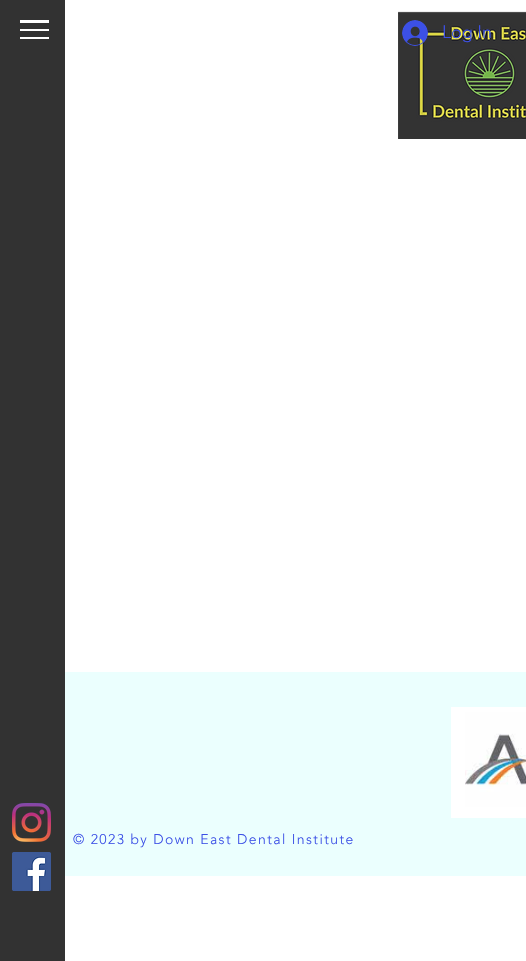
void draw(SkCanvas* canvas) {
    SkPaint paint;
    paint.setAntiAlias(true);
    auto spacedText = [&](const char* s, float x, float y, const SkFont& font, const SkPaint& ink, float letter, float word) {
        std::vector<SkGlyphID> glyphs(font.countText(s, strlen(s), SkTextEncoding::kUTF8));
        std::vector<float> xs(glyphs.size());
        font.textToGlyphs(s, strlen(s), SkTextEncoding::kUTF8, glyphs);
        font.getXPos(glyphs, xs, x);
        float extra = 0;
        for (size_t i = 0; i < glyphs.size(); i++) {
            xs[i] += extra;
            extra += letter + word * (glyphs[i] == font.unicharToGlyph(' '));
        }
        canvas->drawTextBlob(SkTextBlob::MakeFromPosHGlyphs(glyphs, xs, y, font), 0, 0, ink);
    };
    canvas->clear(0xFFFFFFFF);
    paint.setColor(0xFF323232);
    canvas->drawRect(SkRect::MakeXYWH(0, 0, 65, 961), paint);
    canvas->drawImageRect(SkImages::DeferredFromEncodedData(SkData::MakeFromFileName("img1.png")), SkRect::MakeXYWH(12, 803, 39, 39), SkSamplingOptions());
    canvas->drawImageRect(SkImages::DeferredFromEncodedData(SkData::MakeFromFileName("img2.png")), SkRect::MakeXYWH(12, 852, 39, 39), SkSamplingOptions());
    canvas->drawImageRect(SkImages::DeferredFromEncodedData(SkData::MakeFromFileName("img3.png")), SkRect::MakeXYWH(398, 11, 128, 128), SkSamplingOptions());
    paint.setColor(0xFFFFFFFF);
    canvas->drawRect(SkRect::MakeXYWH(20, 37, 29, 2), paint);
    canvas->drawRect(SkRect::MakeXYWH(20, 20, 29, 3), paint);
    canvas->drawRect(SkRect::MakeXYWH(20, 29, 29, 2), paint);
    canvas->drawImageRect(SkImages::DeferredFromEncodedData(SkData::MakeFromFileName("img4.png")), SkRect::MakeXYWH(402, 20, 26, 26), SkSamplingOptions());
    SkFont font1(fontMgr->matchFamilyStyle("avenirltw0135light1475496", SkFontStyle(300, SkFontStyle::kNormal_Width, SkFontStyle::kUpright_Slant)), 18);
    font1.setSubpixel(true);
    paint.setColor(0xFF3C50E6);
    canvas->drawString("Log In", 442, 38, font1, paint);
    paint.setColor(0xFFEBFFFE);
    canvas->drawRect(SkRect::MakeXYWH(65, 672, 461, 204), paint);
    canvas->drawImageRect(SkImages::DeferredFromEncodedData(SkData::MakeFromFileName("img5.png")), SkRect::MakeXYWH(451, 707, 75, 111), SkSamplingOptions());
    SkFont font2(fontMgr->matchFamilyStyle("avenirltw0135light1475496", SkFontStyle(300, SkFontStyle::kNormal_Width, SkFontStyle::kUpright_Slant)), 14);
    font2.setSubpixel(true);
    paint.setColor(0xFF3C50E6);
    spacedText("© 2023 by Down East Dental Institute", 73, 844, font2, paint, 1.4f, 0);
}
